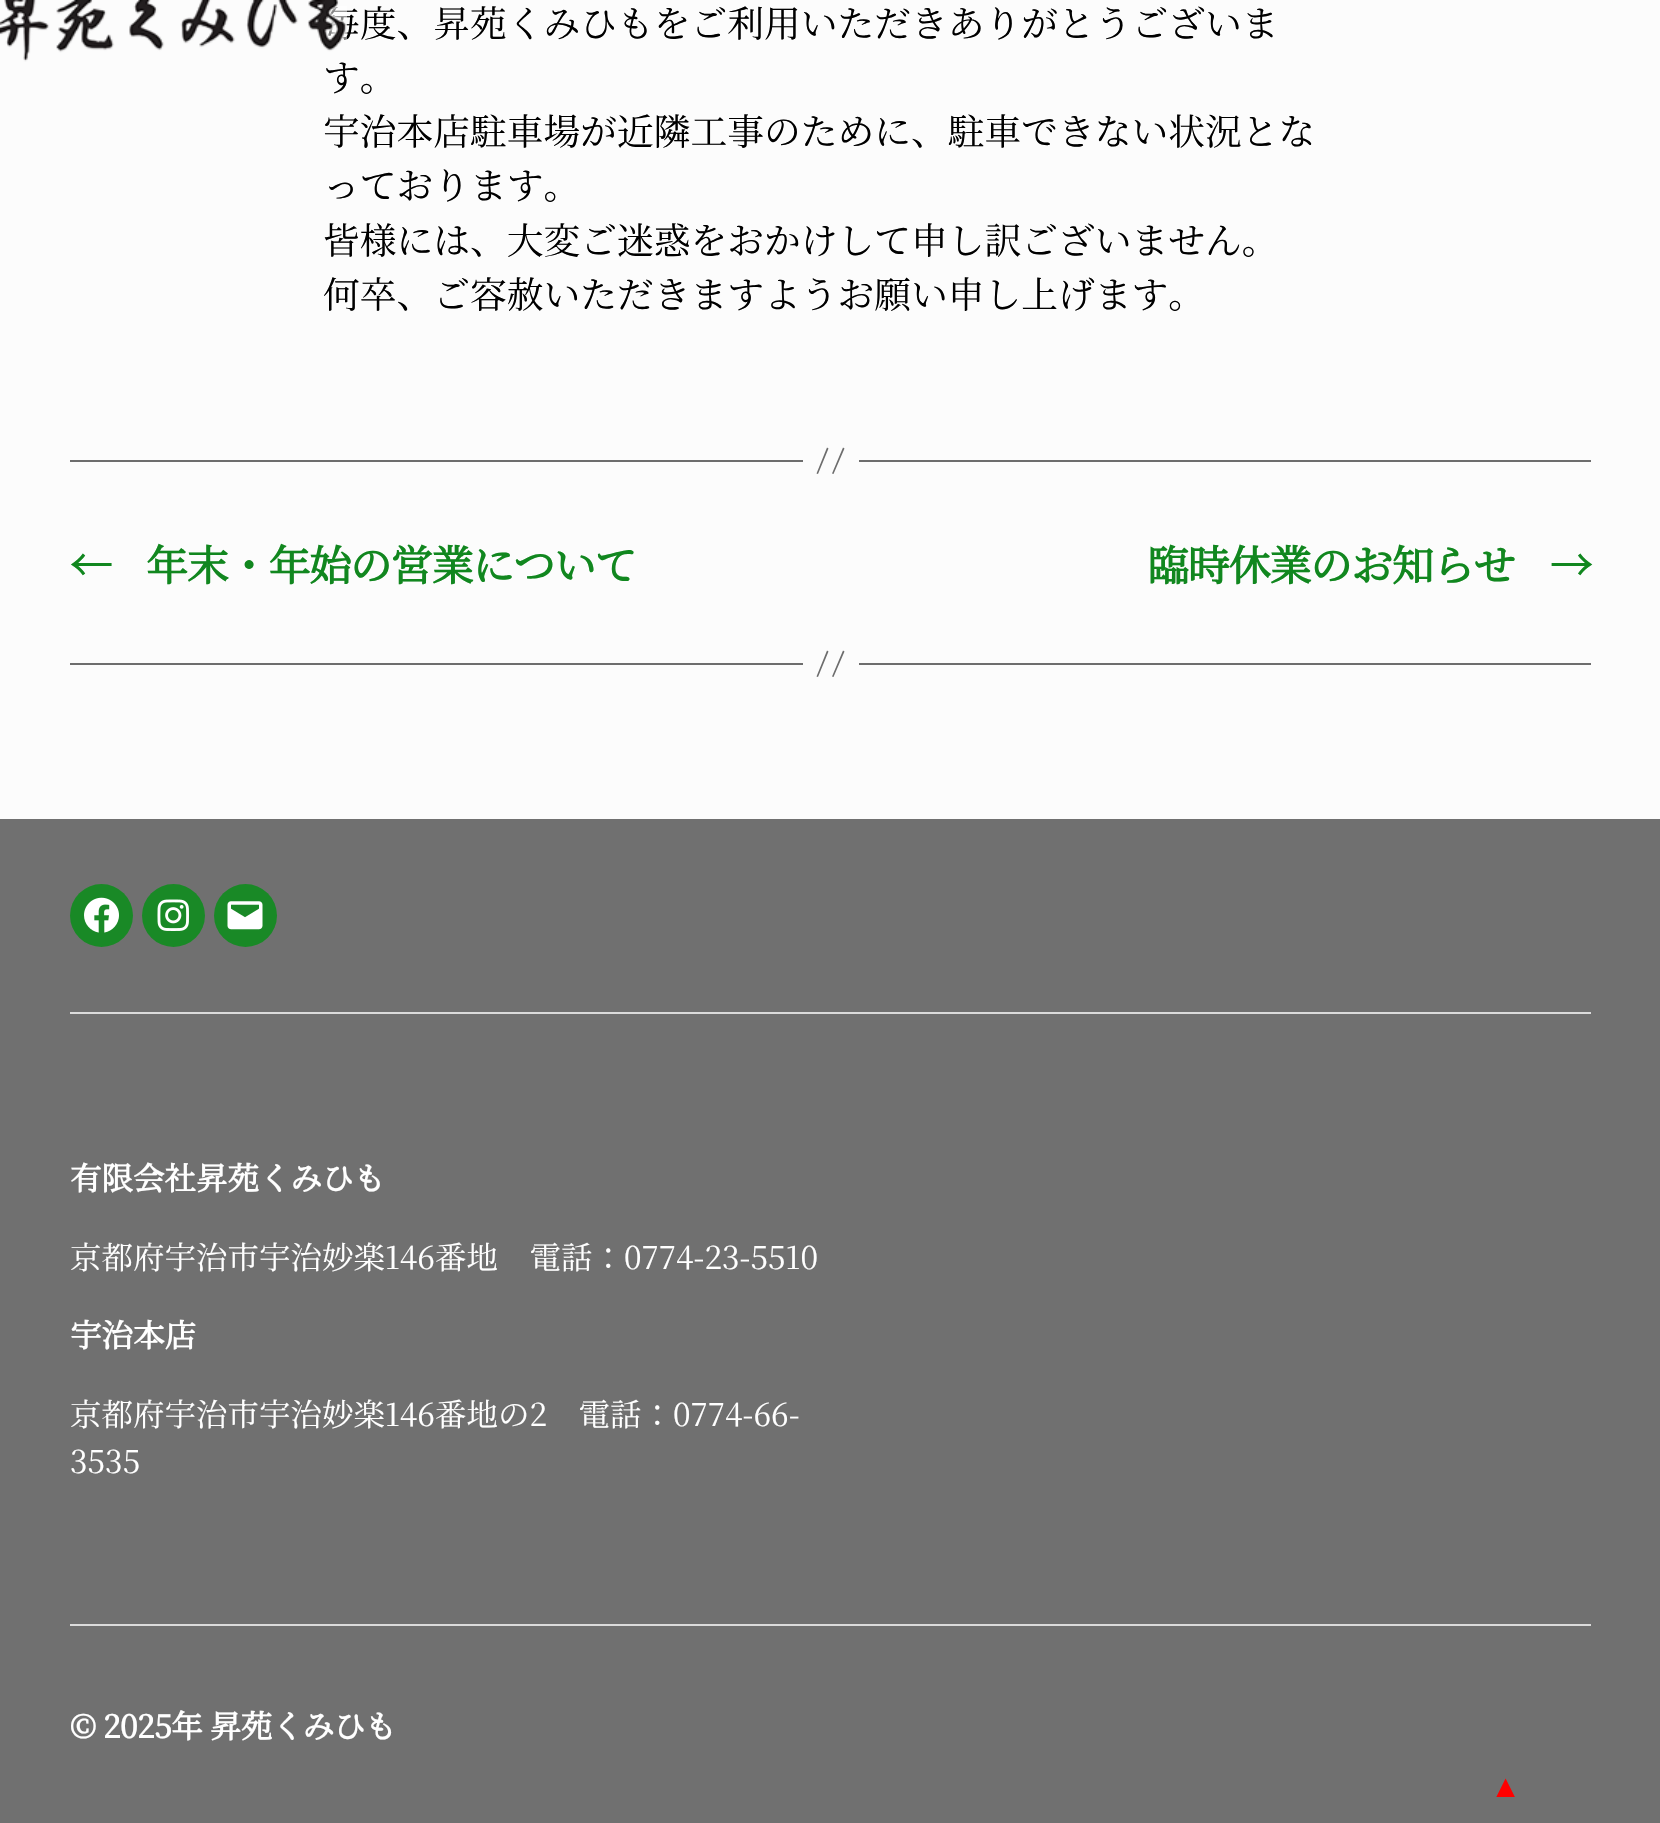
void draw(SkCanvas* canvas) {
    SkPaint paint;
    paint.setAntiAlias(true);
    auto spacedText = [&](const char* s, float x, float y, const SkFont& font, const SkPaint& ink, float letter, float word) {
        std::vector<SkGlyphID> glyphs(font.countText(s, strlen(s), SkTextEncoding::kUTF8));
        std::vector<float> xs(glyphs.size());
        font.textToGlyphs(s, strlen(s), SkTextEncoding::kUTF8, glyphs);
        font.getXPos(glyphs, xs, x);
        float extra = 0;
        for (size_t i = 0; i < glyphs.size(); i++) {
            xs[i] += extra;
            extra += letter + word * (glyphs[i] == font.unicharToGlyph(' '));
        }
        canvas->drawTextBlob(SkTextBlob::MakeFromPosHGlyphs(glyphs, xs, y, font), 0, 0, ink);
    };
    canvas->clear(0xFFFCFCFC);
    SkFont font1(fontMgr->matchFamilyStyle("Noto Serif JP", SkFontStyle(200, SkFontStyle::kNormal_Width, SkFontStyle::kUpright_Slant)), 36.75f);
    font1.setSubpixel(true);
    paint.setColor(0xFF000000);
    canvas->drawString("毎度、昇苑くみひもをご利用いただきありがとうございま", 323, 37, font1, paint);
    paint.setColor(0x80FFFFFF);
    canvas->drawRect(SkRect::MakeXYWH(324, 6, 23, 34), paint);
    canvas->drawImageRect(SkImages::DeferredFromEncodedData(SkData::MakeFromFileName("img1.png")), SkRect::MakeXYWH(0, 0, 347, 62), SkSamplingOptions());
    paint.setColor(0xFF000000);
    canvas->drawString("す。", 323, 91, font1, paint);
    canvas->drawString("宇治本店駐車場が近隣工事のために、駐車できない状況とな", 323, 145, font1, paint);
    canvas->drawString("っております。", 323, 199, font1, paint);
    canvas->drawString("皆様には、大変ご迷惑をおかけして申し訳ございません。", 323, 254, font1, paint);
    canvas->drawString("何卒、ご容赦いただきますようお願い申し上げます。", 323, 308, font1, paint);
    paint.setColor(0xFF6D6D6D);
    canvas->drawRect(SkRect::MakeXYWH(859, 460, 732, 2), paint);
    canvas->drawRect(SkRect::MakeXYWH(70, 460, 733, 2), paint);
    canvas->drawPath(SkPathBuilder().moveTo(827, 447.5f).lineTo(828.5f, 448.5f).lineTo(818, 474).lineTo(816.5f, 473.5f).close().moveTo(843, 447.5f).lineTo(844.5f, 448.5f).lineTo(833.5f, 474).lineTo(832, 473.5f).close().detach(), paint);
    SkFont font2(fontMgr->matchFamilyStyle("Noto Serif JP", SkFontStyle::Bold()), 42);
    font2.setSubpixel(true);
    paint.setColor(0xFF11871F);
    spacedText("←", 70, 581, font2, paint, -1.2f, 0);
    spacedText("年末・年始の営業について", 146, 581, font2, paint, -1.2f, 0);
    spacedText("臨時休業のお知らせ", 1147, 581, font2, paint, -1.2f, 0);
    spacedText("→", 1550, 581, font2, paint, -1.2f, 0);
    paint.setColor(0xFF6D6D6D);
    canvas->drawRect(SkRect::MakeXYWH(859, 663, 732, 2), paint);
    canvas->drawRect(SkRect::MakeXYWH(70, 663, 733, 2), paint);
    canvas->drawPath(SkPathBuilder().moveTo(827, 650.5f).lineTo(828.5f, 651.5f).lineTo(818, 677).lineTo(816.5f, 676.5f).close().moveTo(843, 650.5f).lineTo(844.5f, 651.5f).lineTo(833.5f, 677).lineTo(832, 676.5f).close().detach(), paint);
    paint.setColor(0xFF707070);
    canvas->drawRect(SkRect::MakeXYWH(0, 819, 1660, 1004), paint);
    paint.setColor(0xFFDBDBDB);
    canvas->drawRect(SkRect::MakeXYWH(70, 1012, 1521, 2), paint);
    paint.setColor(0xFF198926);
    canvas->drawCircle(101.5f, 915.5f, 31.5f, paint);
    canvas->drawImageRect(SkImages::DeferredFromEncodedData(SkData::MakeFromFileName("img2.png")), SkRect::MakeXYWH(84, 897, 35, 36), SkSamplingOptions());
    canvas->drawCircle(173.5f, 915.5f, 31.5f, paint);
    canvas->drawImageRect(SkImages::DeferredFromEncodedData(SkData::MakeFromFileName("img3.png")), SkRect::MakeXYWH(157, 899, 32, 32), SkSamplingOptions());
    canvas->drawCircle(245.5f, 915.5f, 31.5f, paint);
    canvas->drawImageRect(SkImages::DeferredFromEncodedData(SkData::MakeFromFileName("img4.png")), SkRect::MakeXYWH(227, 901, 36, 29), SkSamplingOptions());
    paint.setColor(0xFFDBDBDB);
    canvas->drawRect(SkRect::MakeXYWH(70, 1624, 1521, 2), paint);
    SkFont font3(fontMgr->matchFamilyStyle("Noto Serif JP", SkFontStyle::Bold()), 31.5f);
    font3.setSubpixel(true);
    paint.setColor(0xFFFFFFFF);
    canvas->drawString("有限会社昇苑くみひも", 70, 1190, font3, paint);
    SkFont font4(fontMgr->matchFamilyStyle("Noto Serif JP", SkFontStyle(200, SkFontStyle::kNormal_Width, SkFontStyle::kUpright_Slant)), 31.5f);
    font4.setSubpixel(true);
    canvas->drawString("京都府宇治市宇治妙楽146番地　電話：0774-23-5510", 70, 1269, font4, paint);
    canvas->drawString("宇治本店", 70, 1347, font3, paint);
    canvas->drawString("京都府宇治市宇治妙楽146番地の2　電話：0774-66-", 70, 1426, font4, paint);
    canvas->drawString("3535", 70, 1473, font4, paint);
    spacedText("© 2025年 昇苑くみひも", 70, 1738, font3, paint, -0.5f, 0);
    SkFont font5(fontMgr->matchFamilyStyle("Liberation Serif", SkFontStyle::Normal()), 31.5f);
    font5.setSubpixel(true);
    paint.setColor(0xFFFF0000);
    spacedText("▲", 1490, 1797, font5, paint, -0.5f, 0);
}
